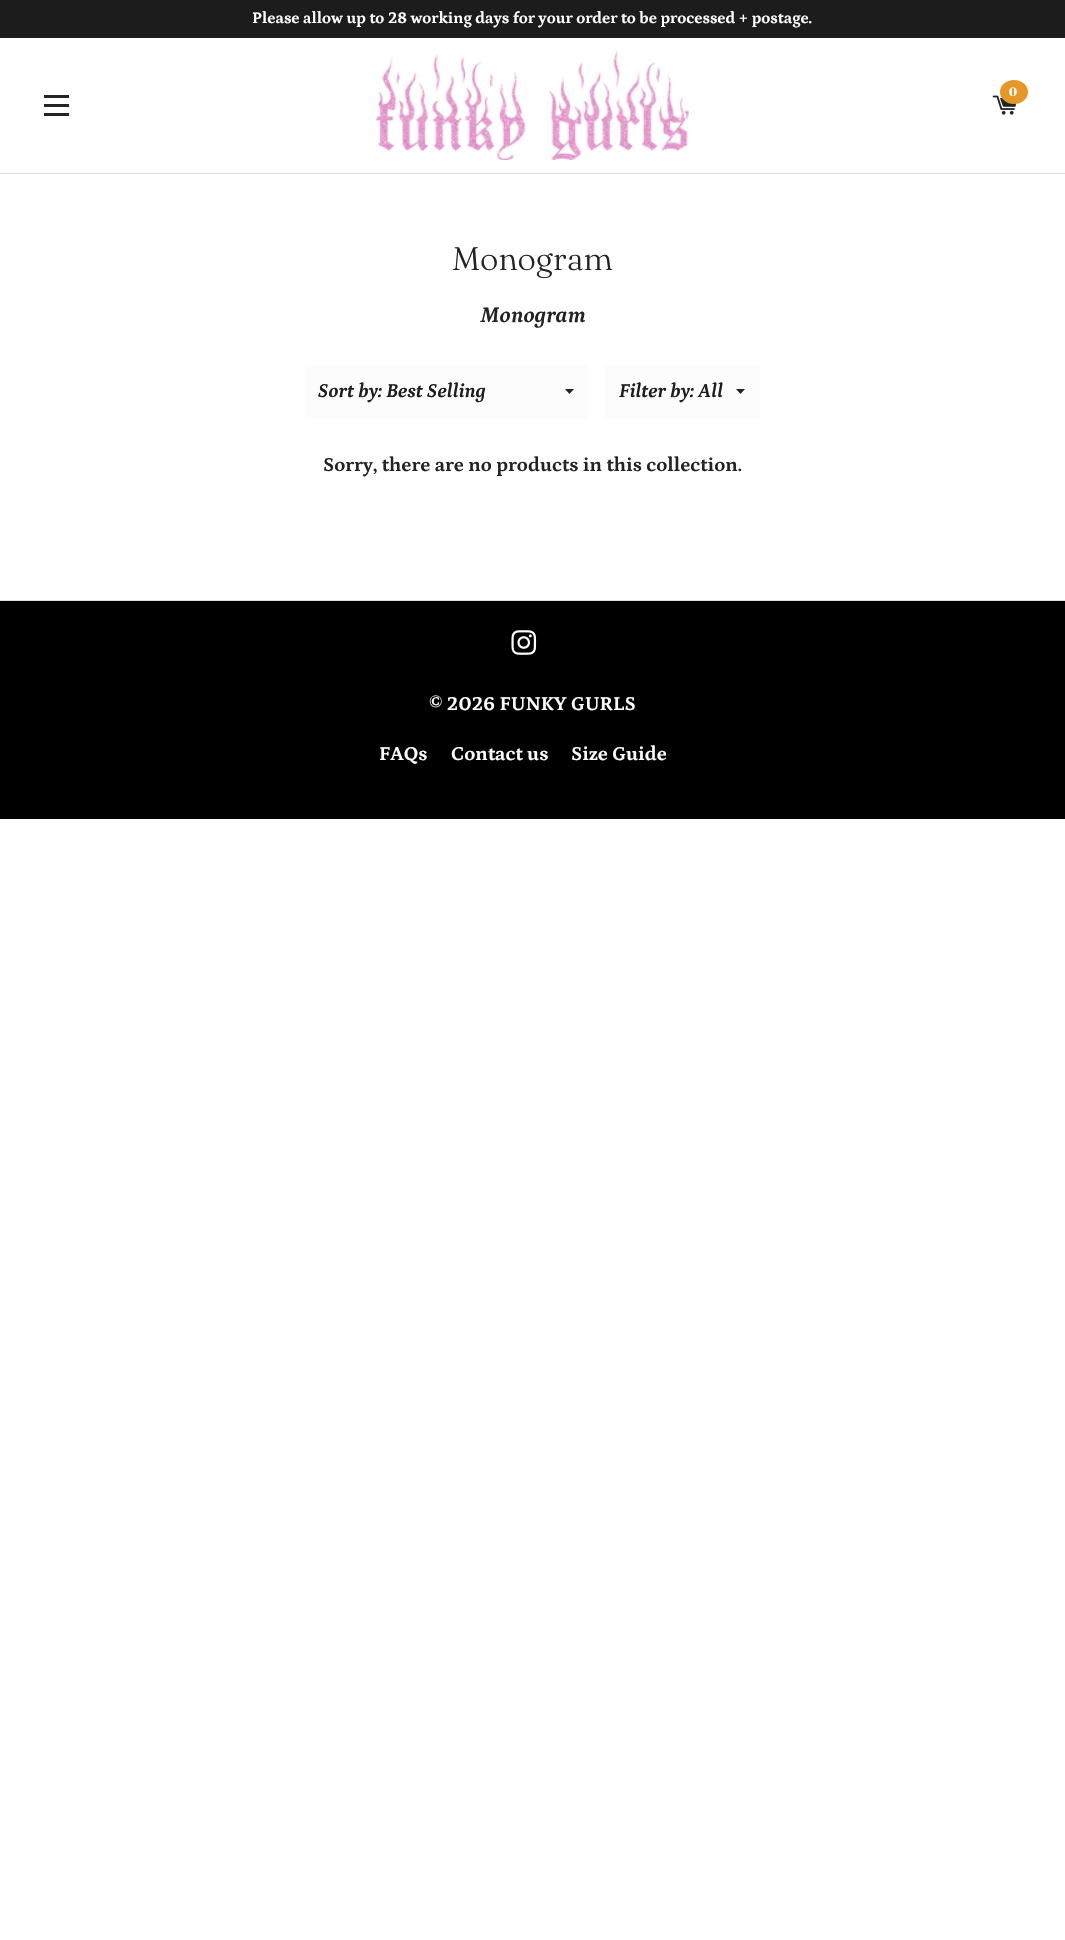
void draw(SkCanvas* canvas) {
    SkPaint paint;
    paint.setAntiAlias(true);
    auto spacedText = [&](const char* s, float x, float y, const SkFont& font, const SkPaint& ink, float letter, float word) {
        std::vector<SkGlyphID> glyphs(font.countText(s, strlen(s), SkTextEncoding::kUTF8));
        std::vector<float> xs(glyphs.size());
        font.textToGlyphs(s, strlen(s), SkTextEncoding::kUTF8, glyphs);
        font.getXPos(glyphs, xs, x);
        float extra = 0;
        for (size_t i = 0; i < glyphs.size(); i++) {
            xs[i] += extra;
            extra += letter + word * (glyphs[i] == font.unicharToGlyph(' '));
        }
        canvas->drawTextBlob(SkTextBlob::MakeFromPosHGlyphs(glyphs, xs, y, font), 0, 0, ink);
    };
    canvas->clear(0xFFFFFFFF);
    paint.setColor(0xFF1D1C1C);
    canvas->drawRect(SkRect::MakeXYWH(0, 0, 1065, 38), paint);
    SkFont font1(fontMgr->matchFamilyStyle("Petrona", SkFontStyle::Bold()), 16.25f);
    font1.setSubpixel(true);
    paint.setColor(0xFFFFFFFF);
    canvas->drawString("Please allow up to 28 working days for your order to be processed + postage.", 252, 23, font1, paint);
    paint.setColor(0xFFDDDDDD);
    canvas->drawRect(SkRect::MakeXYWH(0, 173, 1065, 1), paint);
    canvas->drawImageRect(SkImages::DeferredFromEncodedData(SkData::MakeFromFileName("img1.png")), SkRect::MakeXYWH(376, 50, 313, 110), SkSamplingOptions());
    canvas->drawImageRect(SkImages::DeferredFromEncodedData(SkData::MakeFromFileName("img2.png")), SkRect::MakeXYWH(992, 95, 25, 20), SkSamplingOptions());
    paint.setColor(0xFFE69728);
    canvas->drawOval(SkRect::MakeXYWH(1000, 80, 28, 24), paint);
    SkFont font2(fontMgr->matchFamilyStyle("Abril Fatface", SkFontStyle::Normal()), 12);
    font2.setSubpixel(true);
    paint.setColor(0xFFFFFFFF);
    spacedText("0", 1009, 96, font2, paint, 2, 0);
    paint.setColor(0xFF222323);
    canvas->drawRect(SkRect::MakeXYWH(44, 95, 25, 3), paint);
    canvas->drawRect(SkRect::MakeXYWH(44, 104, 25, 3), paint);
    canvas->drawRect(SkRect::MakeXYWH(44, 113, 25, 3), paint);
    SkFont font3(fontMgr->matchFamilyStyle("Fraunces", SkFontStyle(300, SkFontStyle::kNormal_Width, SkFontStyle::kUpright_Slant)), 32.5f);
    font3.setSubpixel(true);
    canvas->drawString("Monogram", 452, 270, font3, paint);
    SkFont font4(fontMgr->matchFamilyStyle("Petrona", SkFontStyle::BoldItalic()), 22.5f);
    font4.setSubpixel(true);
    canvas->drawString("Monogram", 480, 322, font4, paint);
    paint.setColor(0xFFFCFCFC);
    canvas->drawRect(SkRect::MakeXYWH(305, 365, 284, 54), paint);
    paint.setColor(0xFF222323);
    canvas->drawPath(SkPathBuilder().moveTo(565, 389).lineTo(569.5f, 394).lineTo(574, 389).close().detach(), paint);
    SkFont font5(fontMgr->matchFamilyStyle("Petrona", SkFontStyle::BoldItalic()), 20);
    font5.setSubpixel(true);
    paint.setColor(0xFF1C1D1D);
    canvas->drawString("Sort by: Best Selling", 318, 397, font5, paint);
    paint.setColor(0xFFFCFCFC);
    canvas->drawRect(SkRect::MakeXYWH(605, 365, 155, 54), paint);
    paint.setColor(0xFF222323);
    canvas->drawPath(SkPathBuilder().moveTo(736, 389).lineTo(740.5f, 394).lineTo(745, 389).close().detach(), paint);
    paint.setColor(0xFF1C1D1D);
    canvas->drawString("Filter by: All", 619, 397, font5, paint);
    SkFont font6(fontMgr->matchFamilyStyle("Petrona", SkFontStyle::Bold()), 20);
    font6.setSubpixel(true);
    paint.setColor(0xFF222323);
    canvas->drawString("Sorry, there are no products in this collection.", 323, 471, font6, paint);
    paint.setColor(0xFF000000);
    canvas->drawRect(SkRect::MakeXYWH(0, 601, 1065, 218), paint);
    paint.setColor(0xFFDDDDDD);
    canvas->drawRect(SkRect::MakeXYWH(0, 600, 1065, 1), paint);
    canvas->drawImageRect(SkImages::DeferredFromEncodedData(SkData::MakeFromFileName("img3.png")), SkRect::MakeXYWH(511, 630, 26, 25), SkSamplingOptions());
    paint.setColor(0xFFFFFFFF);
    canvas->drawString("© 2026 FUNKY GURLS", 429, 710, font6, paint);
    canvas->drawString("FAQs", 379, 760, font6, paint);
    canvas->drawString("Contact us", 451, 760, font6, paint);
    canvas->drawString("Size Guide", 571, 760, font6, paint);
}
